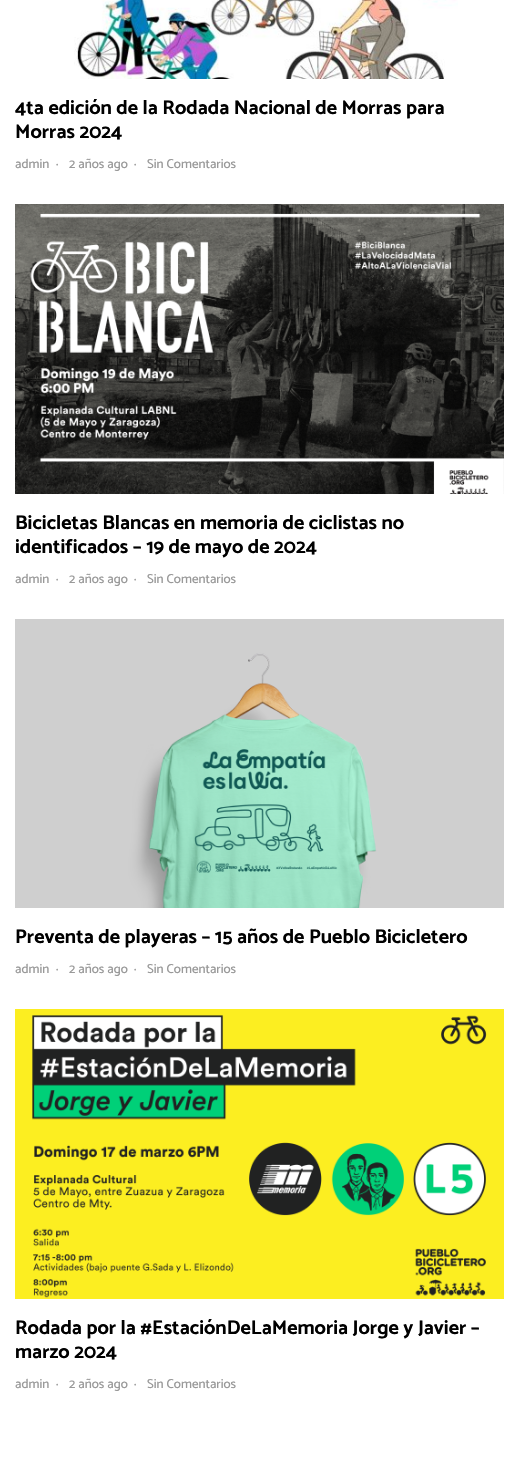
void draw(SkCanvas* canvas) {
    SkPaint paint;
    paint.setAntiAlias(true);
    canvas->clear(0xFFFFFFFF);
    canvas->drawImageRect(SkImages::DeferredFromEncodedData(SkData::MakeFromFileName("img1.png")), SkRect::MakeXYWH(74, 0, 384, 79), SkSamplingOptions());
    SkFont font1(fontMgr->matchFamilyStyle("Catamaran", SkFontStyle::Bold()), 20);
    font1.setSubpixel(true);
    paint.setColor(0xFF000000);
    canvas->drawString("4ta edición de la Rodada Nacional de Morras para", 15, 114, font1, paint);
    canvas->drawString("Morras 2024", 15, 138, font1, paint);
    SkFont font2(fontMgr->matchFamilyStyle("Catamaran", SkFontStyle(500, SkFontStyle::kNormal_Width, SkFontStyle::kUpright_Slant)), 13);
    font2.setSubpixel(true);
    paint.setColor(0xFF999999);
    canvas->drawString("admin", 15, 168, font2, paint);
    canvas->drawString("·", 56, 168, font2, paint);
    canvas->drawString("2 años ago", 69, 168, font2, paint);
    canvas->drawString("·", 134, 168, font2, paint);
    canvas->drawString("Sin Comentarios", 147, 168, font2, paint);
    canvas->drawImageRect(SkImages::DeferredFromEncodedData(SkData::MakeFromFileName("img2.png")), SkRect::MakeXYWH(15, 204, 489, 290), SkSamplingOptions());
    paint.setColor(0xFF000000);
    canvas->drawString("Bicicletas Blancas en memoria de ciclistas no", 15, 529, font1, paint);
    canvas->drawString("identificados – 19 de mayo de 2024", 15, 553, font1, paint);
    paint.setColor(0xFF999999);
    canvas->drawString("admin", 15, 583, font2, paint);
    canvas->drawString("·", 56, 583, font2, paint);
    canvas->drawString("2 años ago", 69, 583, font2, paint);
    canvas->drawString("·", 134, 583, font2, paint);
    canvas->drawString("Sin Comentarios", 147, 583, font2, paint);
    canvas->drawImageRect(SkImages::DeferredFromEncodedData(SkData::MakeFromFileName("img3.png")), SkRect::MakeXYWH(15, 619, 489, 289), SkSamplingOptions());
    paint.setColor(0xFF000000);
    canvas->drawString("Preventa de playeras – 15 años de Pueblo Bicicletero", 15, 943, font1, paint);
    paint.setColor(0xFF999999);
    canvas->drawString("admin", 15, 973, font2, paint);
    canvas->drawString("·", 56, 973, font2, paint);
    canvas->drawString("2 años ago", 69, 973, font2, paint);
    canvas->drawString("·", 134, 973, font2, paint);
    canvas->drawString("Sin Comentarios", 147, 973, font2, paint);
    canvas->drawImageRect(SkImages::DeferredFromEncodedData(SkData::MakeFromFileName("img4.png")), SkRect::MakeXYWH(15, 1009, 489, 290), SkSamplingOptions());
    paint.setColor(0xFF000000);
    canvas->drawString("Rodada por la #EstaciónDeLaMemoria Jorge y Javier –", 15, 1334, font1, paint);
    canvas->drawString("marzo 2024", 15, 1358, font1, paint);
    paint.setColor(0xFF999999);
    canvas->drawString("admin", 15, 1388, font2, paint);
    canvas->drawString("·", 56, 1388, font2, paint);
    canvas->drawString("2 años ago", 69, 1388, font2, paint);
    canvas->drawString("·", 134, 1388, font2, paint);
    canvas->drawString("Sin Comentarios", 147, 1388, font2, paint);
}
